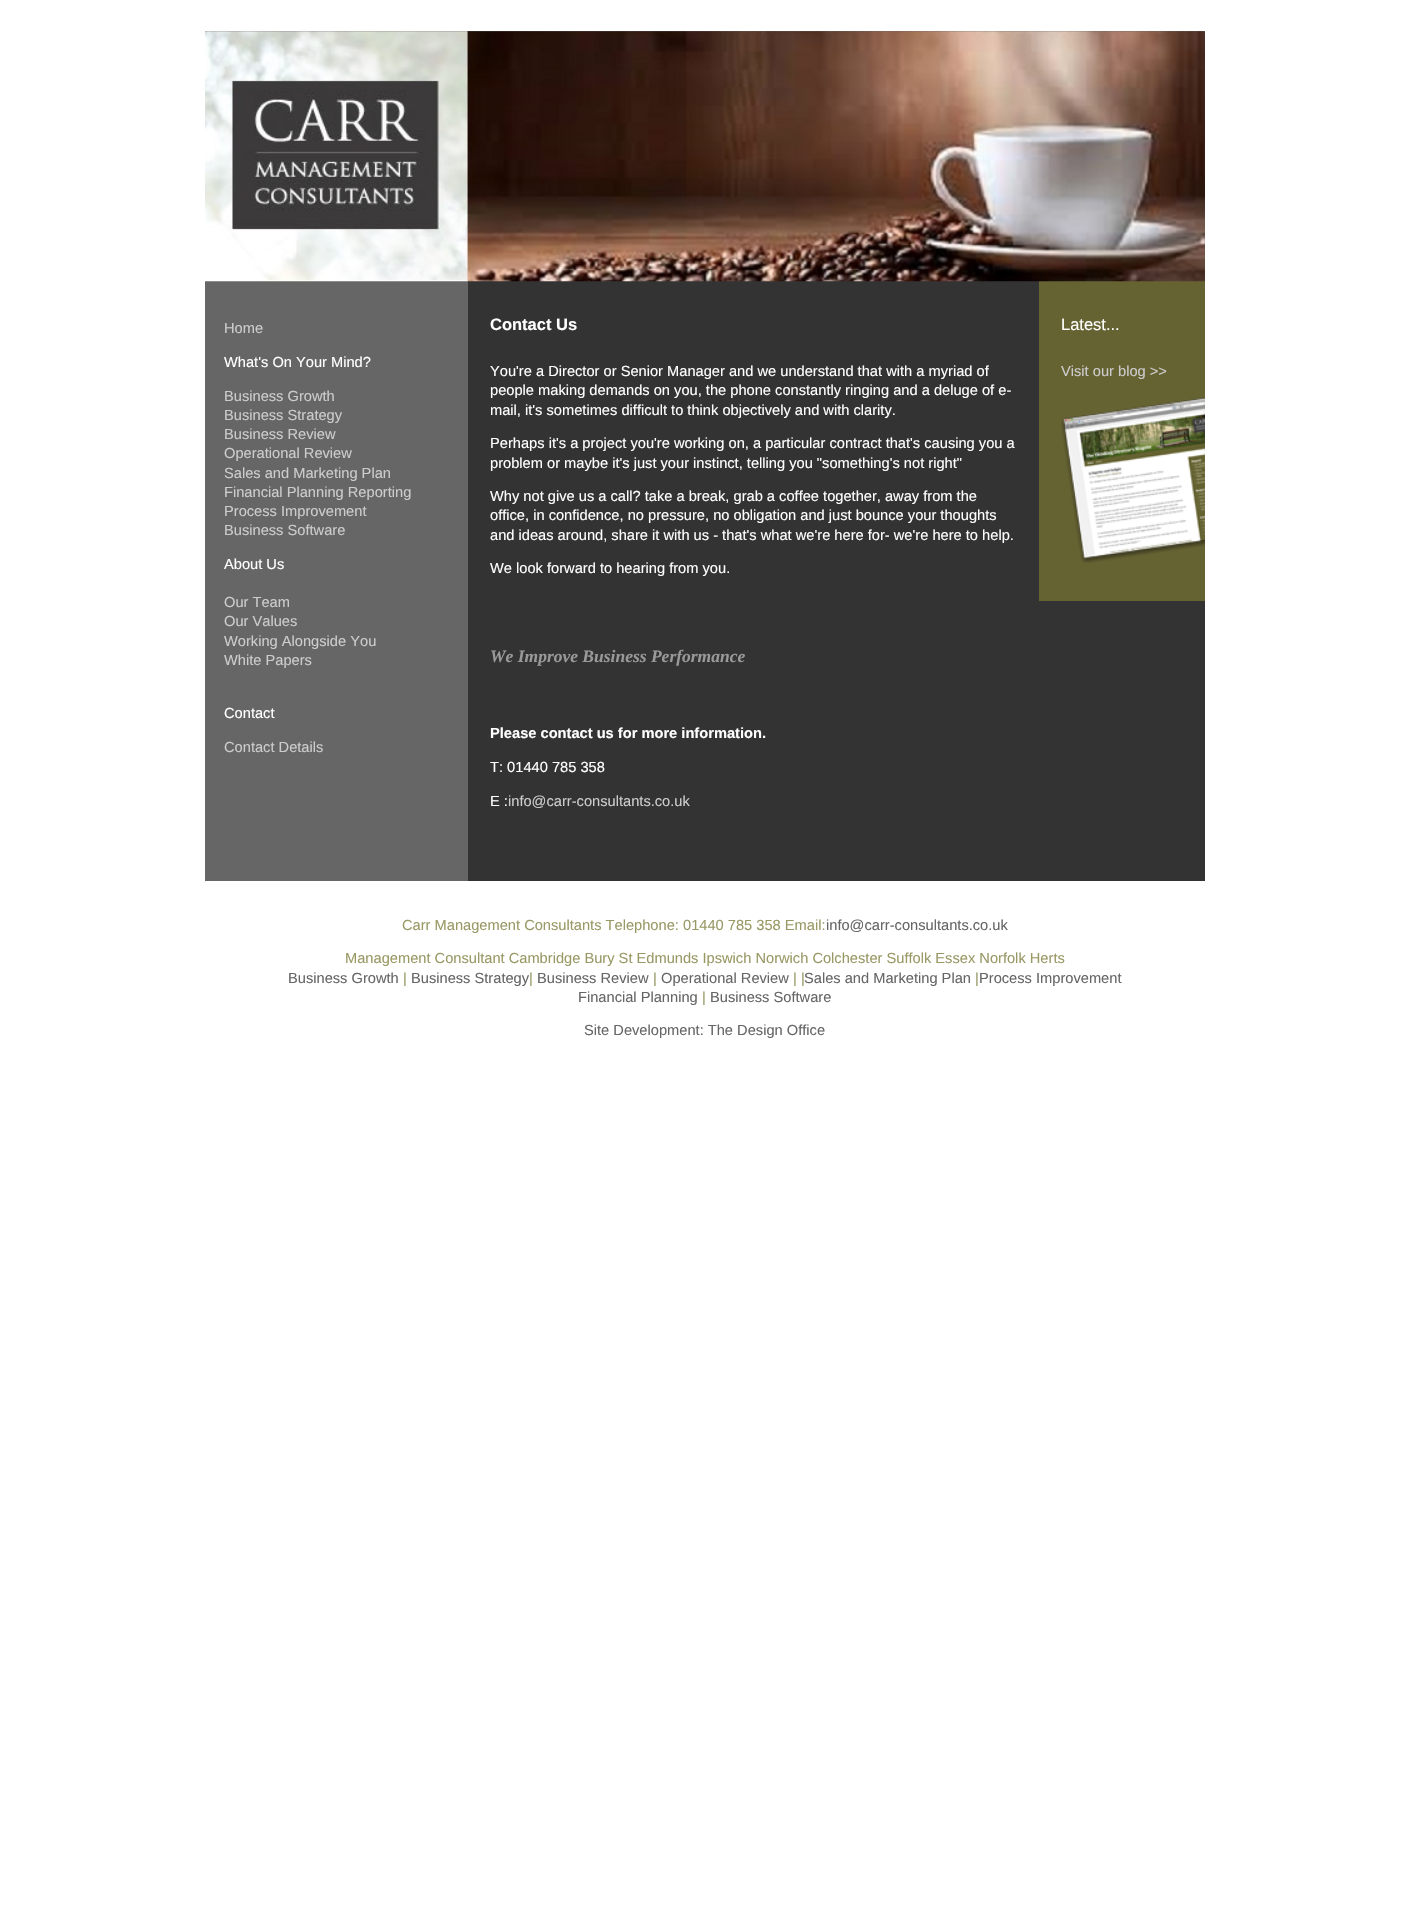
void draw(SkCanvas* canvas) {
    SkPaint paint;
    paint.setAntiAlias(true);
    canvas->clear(0xFFFFFFFF);
    paint.setColor(0xFF666666);
    canvas->drawRect(SkRect::MakeXYWH(205, 31, 1000, 850), paint);
    paint.setColor(0xFF333333);
    canvas->drawRect(SkRect::MakeXYWH(468, 281, 737, 600), paint);
    paint.setColor(0xFF666333);
    canvas->drawRect(SkRect::MakeXYWH(1039, 281, 166, 320), paint);
    canvas->drawImageRect(SkImages::DeferredFromEncodedData(SkData::MakeFromFileName("img1.png")), SkRect::MakeXYWH(205, 31, 1000, 251), SkSamplingOptions());
    SkFont font1(fontMgr->matchFamilyStyle("Liberation Sans", SkFontStyle::Normal()), 14.65f);
    font1.setSubpixel(true);
    paint.setColor(0xFFCCCCCC);
    canvas->drawString("Home", 224, 333, font1, paint);
    paint.setColor(0xFFFFFFFF);
    canvas->drawString("What's On Your Mind?", 224, 367, font1, paint);
    paint.setColor(0xFFCCCCCC);
    canvas->drawString("Business Growth", 224, 401, font1, paint);
    canvas->drawString("Business Strategy", 224, 420, font1, paint);
    canvas->drawString("Business Review", 224, 439, font1, paint);
    canvas->drawString("Operational Review", 224, 458, font1, paint);
    canvas->drawString("Sales and Marketing Plan", 224, 478, font1, paint);
    canvas->drawString("Financial Planning Reporting", 224, 497, font1, paint);
    canvas->drawString("Process Improvement", 224, 516, font1, paint);
    canvas->drawString("Business Software", 224, 535, font1, paint);
    paint.setColor(0xFFFFFFFF);
    canvas->drawString("About Us", 224, 569, font1, paint);
    paint.setColor(0xFFCCCCCC);
    canvas->drawString("Our Team", 224, 607, font1, paint);
    canvas->drawString("Our Values", 224, 626, font1, paint);
    canvas->drawString("Working Alongside You", 224, 646, font1, paint);
    canvas->drawString("White Papers", 224, 665, font1, paint);
    paint.setColor(0xFFFFFFFF);
    canvas->drawString("Contact", 224, 718, font1, paint);
    paint.setColor(0xFFCCCCCC);
    canvas->drawString("Contact Details", 224, 752, font1, paint);
    SkFont font2(fontMgr->matchFamilyStyle("Liberation Sans", SkFontStyle::Bold()), 16.5f);
    font2.setSubpixel(true);
    paint.setColor(0xFFFFFFFF);
    canvas->drawString("Contact Us", 490, 330, font2, paint);
    canvas->drawString("You're a Director or Senior Manager and we understand that with a myriad of", 490, 376, font1, paint);
    canvas->drawString("people making demands on you, the phone constantly ringing and a deluge of e-", 490, 395, font1, paint);
    canvas->drawString("mail, it's sometimes difficult to think objectively and with clarity.", 490, 415, font1, paint);
    canvas->drawString("Perhaps it's a project you're working on, a particular contract that's causing you a", 490, 448, font1, paint);
    canvas->drawString("problem or maybe it's just your instinct, telling you \"something's not right\"", 490, 468, font1, paint);
    canvas->drawString("Why not give us a call? take a break, grab a coffee together, away from the", 490, 501, font1, paint);
    canvas->drawString("office, in confidence, no pressure, no obligation and just bounce your thoughts", 490, 520, font1, paint);
    canvas->drawString("and ideas around, share it with us - that's what we're here for- we're here to help.", 490, 540, font1, paint);
    canvas->drawString("We look forward to hearing from you.", 490, 573, font1, paint);
    SkFont font3(fontMgr->matchFamilyStyle("Liberation Serif", SkFontStyle::BoldItalic()), 17.5f);
    font3.setSubpixel(true);
    paint.setColor(0xFF999999);
    canvas->drawString("We Improve Business Performance", 490, 662, font3, paint);
    SkFont font4(fontMgr->matchFamilyStyle("Liberation Sans", SkFontStyle::Bold()), 14.65f);
    font4.setSubpixel(true);
    paint.setColor(0xFFFFFFFF);
    canvas->drawString("Please contact us for more information.", 490, 738, font4, paint);
    canvas->drawString("T: 01440 785 358", 490, 772, font1, paint);
    canvas->drawString("E :", 490, 806, font1, paint);
    paint.setColor(0xFFCCCCCC);
    canvas->drawString("info@carr-consultants.co.uk", 508, 806, font1, paint);
    SkFont font5(fontMgr->matchFamilyStyle("Liberation Sans", SkFontStyle::Normal()), 16.5f);
    font5.setSubpixel(true);
    paint.setColor(0xFFFFFFFF);
    canvas->drawString("Latest...", 1061, 330, font5, paint);
    paint.setColor(0xFFCCCCCC);
    canvas->drawString("Visit our blog >>", 1061, 376, font1, paint);
    canvas->drawImageRect(SkImages::DeferredFromEncodedData(SkData::MakeFromFileName("img2.png")), SkRect::MakeXYWH(1061, 397, 144, 166), SkSamplingOptions());
    paint.setColor(0xFF999966);
    canvas->drawString("Carr Management Consultants Telephone:", 402, 930, font1, paint);
    canvas->drawString("01440 785 358 Email:", 683, 930, font1, paint);
    paint.setColor(0xFF666666);
    canvas->drawString("info@carr-consultants.co.uk", 826, 930, font1, paint);
    paint.setColor(0xFF999966);
    canvas->drawString("Management Consultant Cambridge Bury St Edmunds Ipswich Norwich Colchester Suffolk Essex Norfolk Herts", 345, 963, font1, paint);
    paint.setColor(0xFF666666);
    canvas->drawString("Business Growth", 288, 983, font1, paint);
    paint.setColor(0xFF999966);
    canvas->drawString("|", 403, 983, font1, paint);
    paint.setColor(0xFF666666);
    canvas->drawString("Business Strategy", 411, 983, font1, paint);
    paint.setColor(0xFF999966);
    canvas->drawString("|", 529, 983, font1, paint);
    paint.setColor(0xFF666666);
    canvas->drawString("Business Review", 537, 983, font1, paint);
    paint.setColor(0xFF999966);
    canvas->drawString("|", 653, 983, font1, paint);
    paint.setColor(0xFF666666);
    canvas->drawString("Operational Review", 661, 983, font1, paint);
    paint.setColor(0xFF999966);
    canvas->drawString("| |", 793, 983, font1, paint);
    paint.setColor(0xFF666666);
    canvas->drawString("Sales and Marketing Plan", 804, 983, font1, paint);
    paint.setColor(0xFF999966);
    canvas->drawString("|", 975, 983, font1, paint);
    paint.setColor(0xFF666666);
    canvas->drawString("Process Improvement", 979, 983, font1, paint);
    canvas->drawString("Financial Planning", 578, 1002, font1, paint);
    paint.setColor(0xFF999966);
    canvas->drawString("|", 702, 1002, font1, paint);
    paint.setColor(0xFF666666);
    canvas->drawString("Business Software", 710, 1002, font1, paint);
    canvas->drawString("Site Development: The Design Office", 584, 1035, font1, paint);
}
